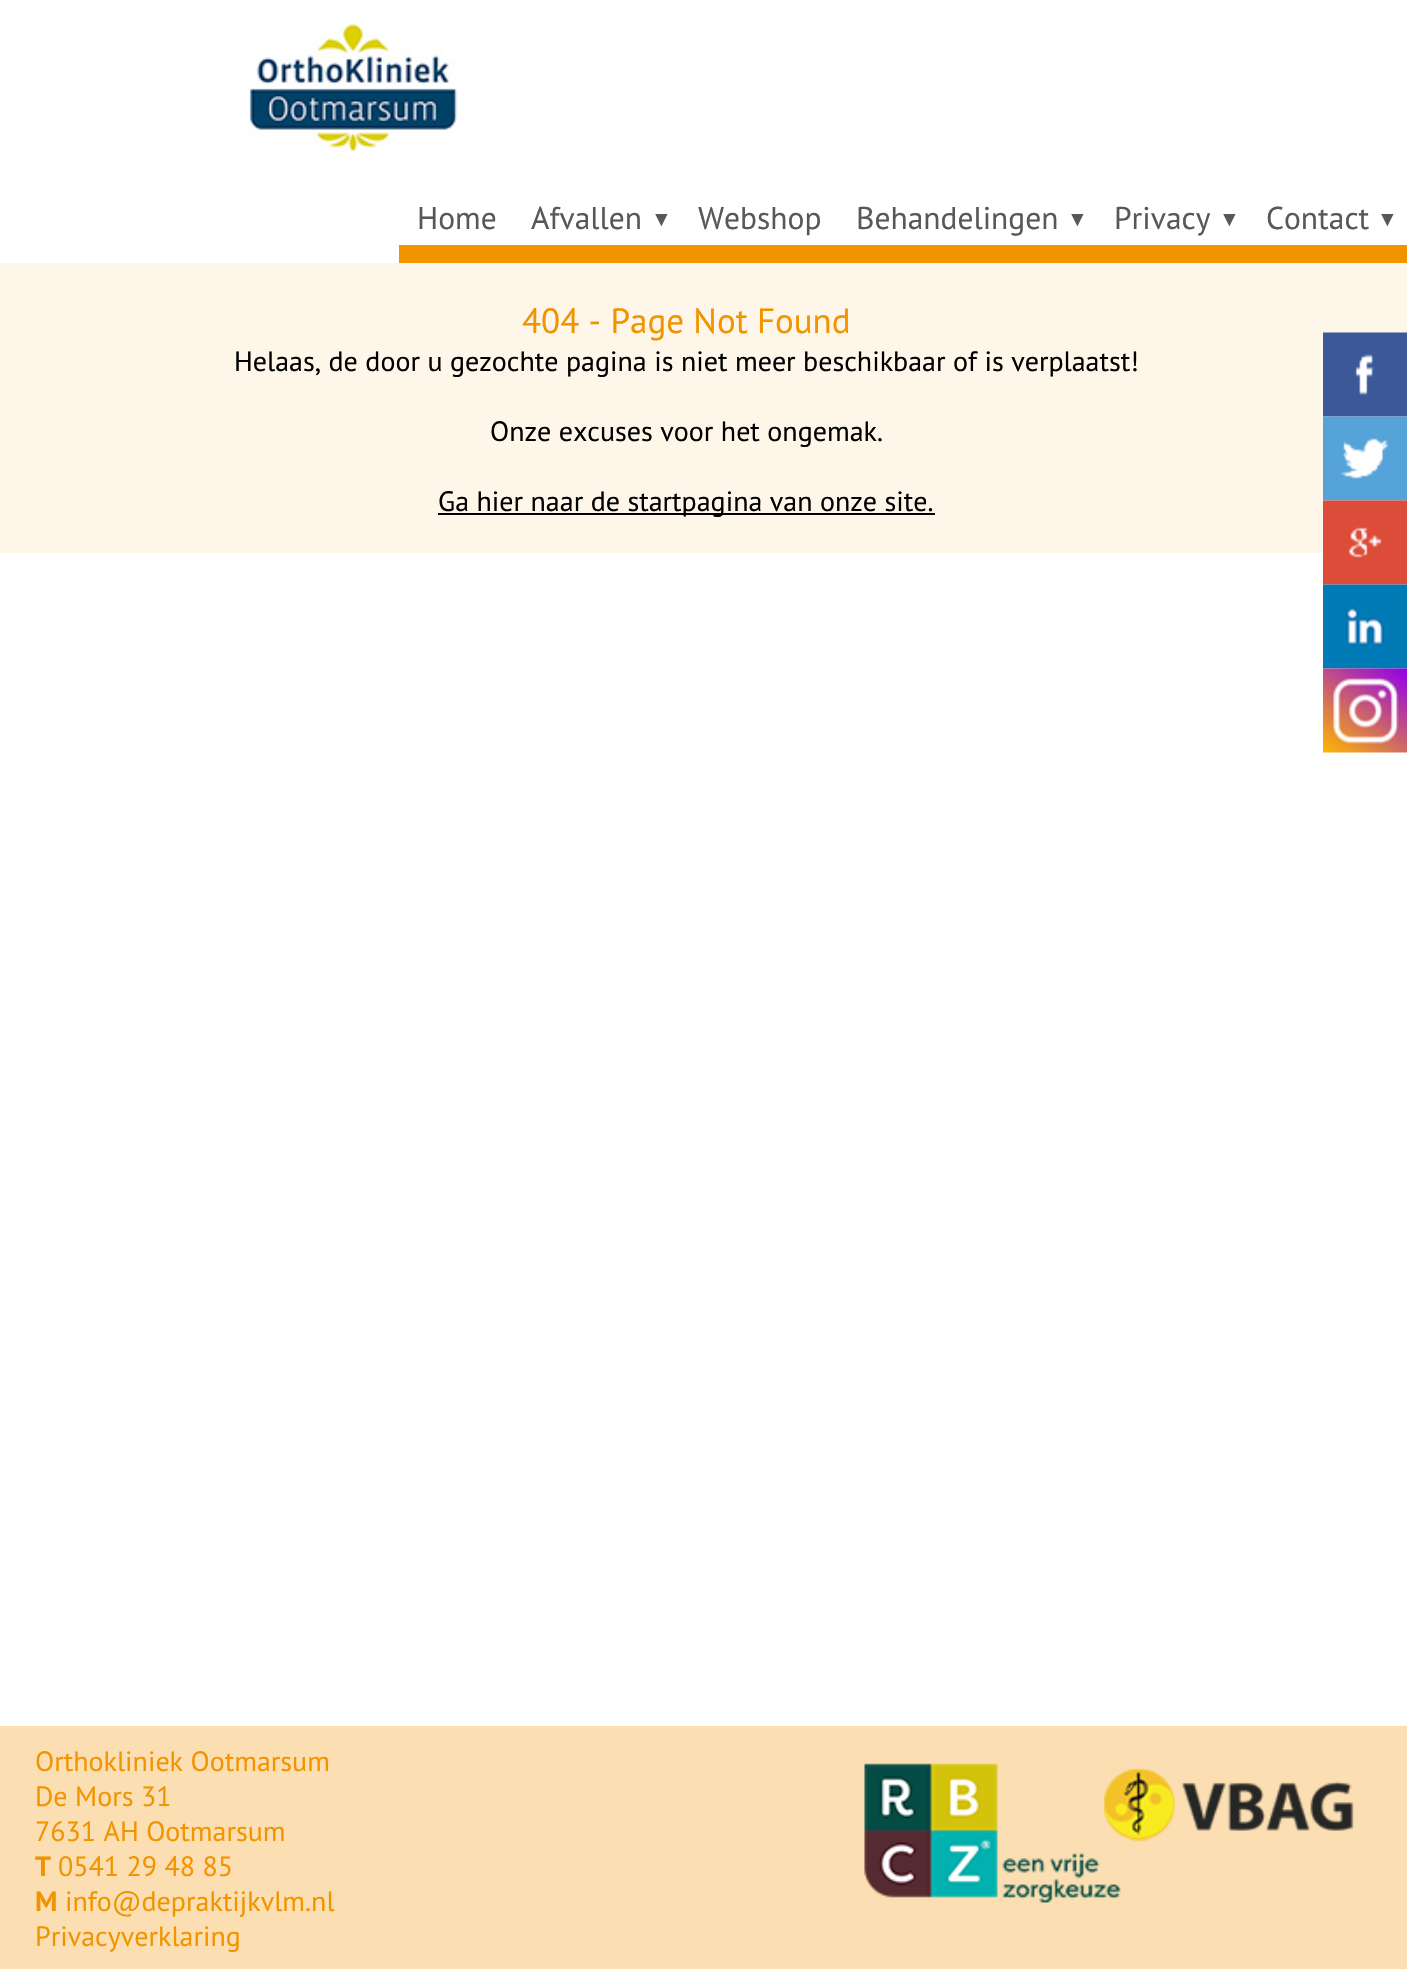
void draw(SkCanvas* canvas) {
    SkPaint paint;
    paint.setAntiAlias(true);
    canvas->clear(0xFFFFFFFF);
    canvas->drawImageRect(SkImages::DeferredFromEncodedData(SkData::MakeFromFileName("img1.png")), SkRect::MakeXYWH(249, 18, 209, 137), SkSamplingOptions());
    paint.setColor(0xFFF29400);
    canvas->drawRect(SkRect::MakeXYWH(399, 245, 1008, 18), paint);
    SkFont font1(fontMgr->matchFamilyStyle("PT Sans", SkFontStyle::Normal()), 31.5f);
    font1.setSubpixel(true);
    paint.setColor(0xFF58585A);
    canvas->drawString("Home", 417, 229, font1, paint);
    canvas->drawString("Afvallen", 531, 229, font1, paint);
    SkFont font2(fontMgr->matchFamilyStyle("Liberation Sans", SkFontStyle::Normal()), 21);
    font2.setSubpixel(true);
    canvas->drawString("▼", 651, 226, font2, paint);
    canvas->drawString("Webshop", 698, 229, font1, paint);
    canvas->drawString("Behandelingen", 856, 229, font1, paint);
    canvas->drawString("▼", 1067, 226, font2, paint);
    canvas->drawString("Privacy", 1114, 229, font1, paint);
    canvas->drawString("▼", 1219, 226, font2, paint);
    canvas->drawString("Contact", 1266, 229, font1, paint);
    canvas->drawString("▼", 1377, 226, font2, paint);
    paint.setColor(0xFFFDF6E9);
    canvas->drawRect(SkRect::MakeXYWH(0, 263, 1407, 290), paint);
    SkFont font3(fontMgr->matchFamilyStyle("PT Sans", SkFontStyle::Normal()), 35);
    font3.setSubpixel(true);
    paint.setColor(0xFFF29400);
    canvas->drawString("404 - Page Not Found", 522, 333, font3, paint);
    SkFont font4(fontMgr->matchFamilyStyle("PT Sans", SkFontStyle::Normal()), 28);
    font4.setSubpixel(true);
    paint.setColor(0xFF000000);
    canvas->drawString("Helaas, de door u gezochte pagina is niet meer beschikbaar of is verplaatst!", 234, 371, font4, paint);
    canvas->drawString("Onze excuses voor het ongemak.", 490, 441, font4, paint);
    canvas->drawRect(SkRect::MakeXYWH(438, 513, 497, 2), paint);
    canvas->drawString("Ga hier naar de startpagina van onze site.", 438, 511, font4, paint);
    canvas->drawImageRect(SkImages::DeferredFromEncodedData(SkData::MakeFromFileName("img2.png")), SkRect::MakeXYWH(1323, 332, 84, 85), SkSamplingOptions());
    canvas->drawImageRect(SkImages::DeferredFromEncodedData(SkData::MakeFromFileName("img3.png")), SkRect::MakeXYWH(1323, 416, 84, 85), SkSamplingOptions());
    canvas->drawImageRect(SkImages::DeferredFromEncodedData(SkData::MakeFromFileName("img4.png")), SkRect::MakeXYWH(1323, 500, 84, 85), SkSamplingOptions());
    canvas->drawImageRect(SkImages::DeferredFromEncodedData(SkData::MakeFromFileName("img5.png")), SkRect::MakeXYWH(1323, 584, 84, 85), SkSamplingOptions());
    canvas->drawImageRect(SkImages::DeferredFromEncodedData(SkData::MakeFromFileName("img6.png")), SkRect::MakeXYWH(1323, 668, 84, 85), SkSamplingOptions());
    paint.setColor(0xFFFBDFB2);
    canvas->drawRect(SkRect::MakeXYWH(0, 1726, 1407, 243), paint);
    paint.setColor(0xFFF29400);
    canvas->drawString("Orthokliniek Ootmarsum", 35, 1771, font4, paint);
    canvas->drawString("De Mors 31", 35, 1806, font4, paint);
    canvas->drawString("7631 AH Ootmarsum", 35, 1841, font4, paint);
    SkFont font5(fontMgr->matchFamilyStyle("PT Sans", SkFontStyle::Bold()), 28);
    font5.setSubpixel(true);
    canvas->drawString("T", 35, 1876, font5, paint);
    canvas->drawString("0541 29 48 85", 58, 1876, font4, paint);
    canvas->drawString("M", 35, 1911, font5, paint);
    canvas->drawString("info@depraktijkvlm.nl", 65, 1911, font4, paint);
    canvas->drawString("Privacyverklaring", 35, 1946, font4, paint);
    canvas->drawImageRect(SkImages::DeferredFromEncodedData(SkData::MakeFromFileName("img7.png")), SkRect::MakeXYWH(864, 1763, 490, 140), SkSamplingOptions());
}
